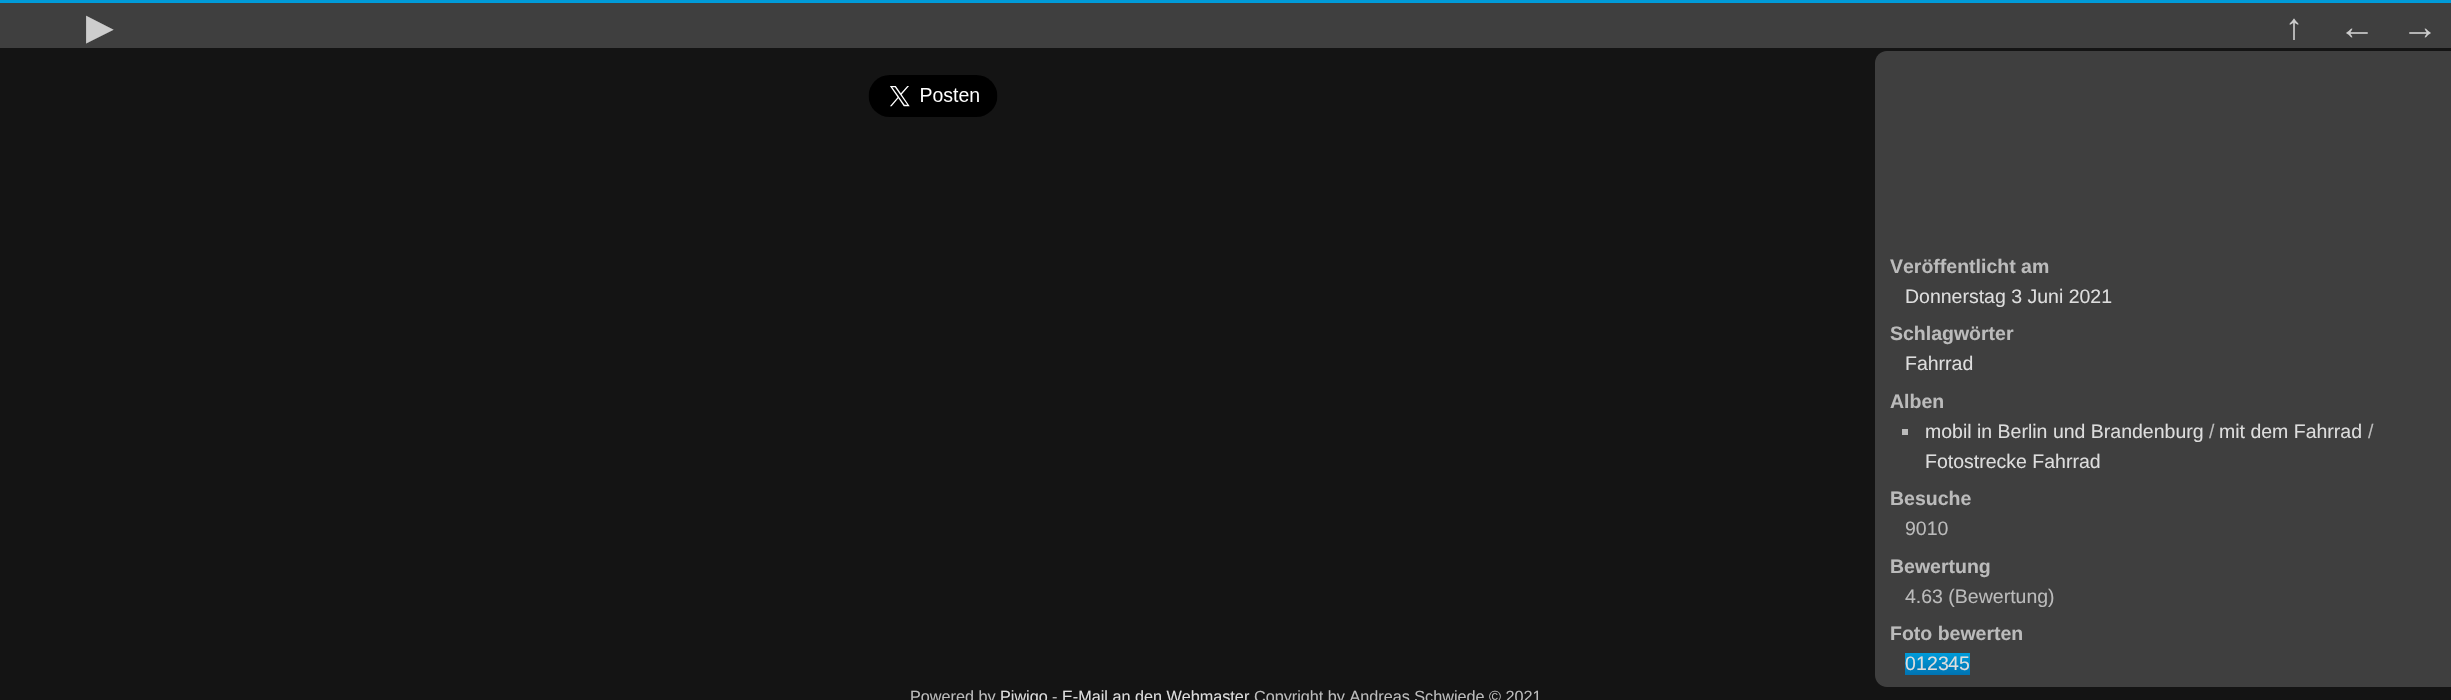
void draw(SkCanvas* canvas) {
    SkPaint paint;
    paint.setAntiAlias(true);
    canvas->clear(0xFF141414);
    {
        const SkColor colors[] = {0xFF0073B2, 0xFF009CDA};
        const float stops[] = {0, 1};
        const SkPoint ends[] = {{1226, -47}, {1226, 3}};
        paint.setShader(SkGradientShader::MakeLinear(ends, colors, stops, 2, SkTileMode::kClamp));
        paint.setAlpha(255);
    }
    canvas->drawRect(SkRect::MakeXYWH(0, 0, 2451, 3), paint);
    paint.setShader(nullptr);
    paint.setColor(0xFF3F3F3F);
    canvas->drawRect(SkRect::MakeXYWH(0, 3, 2451, 45), paint);
    SkFont font1(fontMgr->matchFamilyStyle("DejaVu Sans", SkFontStyle::Normal()), 36);
    font1.setSubpixel(true);
    paint.setColor(0xFFCDCDCD);
    canvas->drawString("▶", 86, 39, font1, paint);
    SkFont font2(fontMgr->matchFamilyStyle("Liberation Serif", SkFontStyle::Normal()), 36);
    font2.setSubpixel(true);
    canvas->drawString("↑", 2285, 39, font2, paint);
    canvas->drawString("←", 2339, 39, font2, paint);
    canvas->drawString("→", 2402, 39, font2, paint);
    canvas->drawImageRect(SkImages::DeferredFromEncodedData(SkData::MakeFromFileName("img1.png")), SkRect::MakeXYWH(868, 75, 130, 42), SkSamplingOptions());
    paint.setColor(0xFF3F3F3F);
    canvas->drawPath(SkPathBuilder().moveTo(1887, 51).lineTo(2451, 51).lineTo(2451, 687).lineTo(1887, 687).cubicTo(1880.5f, 687, 1875, 681.5f, 1875, 675).lineTo(1875, 63).cubicTo(1875, 56.5f, 1880.5f, 51, 1887, 51).close().detach(), paint);
    SkFont font3(fontMgr->matchFamilyStyle("Liberation Sans", SkFontStyle::Bold()), 19.5f);
    font3.setSubpixel(true);
    paint.setColor(0xFFBBBBBB);
    canvas->drawString("Veröffentlicht am", 1890, 273, font3, paint);
    SkFont font4(fontMgr->matchFamilyStyle("Liberation Sans", SkFontStyle::Normal()), 19.5f);
    font4.setSubpixel(true);
    paint.setColor(0xFFDDDDDD);
    canvas->drawString("Donnerstag 3 Juni 2021", 1905, 303, font4, paint);
    paint.setColor(0xFFBBBBBB);
    canvas->drawString("Schlagwörter", 1890, 340, font3, paint);
    paint.setColor(0xFFDDDDDD);
    canvas->drawString("Fahrrad", 1905, 370, font4, paint);
    paint.setColor(0xFFBBBBBB);
    canvas->drawString("Alben", 1890, 408, font3, paint);
    canvas->drawRect(SkRect::MakeXYWH(1902, 429, 6, 6), paint);
    paint.setColor(0xFFDDDDDD);
    canvas->drawString("mobil in Berlin und Brandenburg", 1925, 438, font4, paint);
    paint.setColor(0xFFBBBBBB);
    canvas->drawString("/", 2209, 438, font4, paint);
    paint.setColor(0xFFDDDDDD);
    canvas->drawString("mit dem Fahrrad", 2219, 438, font4, paint);
    paint.setColor(0xFFBBBBBB);
    canvas->drawString("/", 2368, 438, font4, paint);
    paint.setColor(0xFFDDDDDD);
    canvas->drawString("Fotostrecke Fahrrad", 1925, 468, font4, paint);
    paint.setColor(0xFFBBBBBB);
    canvas->drawString("Besuche", 1890, 505, font3, paint);
    canvas->drawString("9010", 1905, 535, font4, paint);
    canvas->drawString("Bewertung", 1890, 573, font3, paint);
    canvas->drawString("4.63 (Bewertung)", 1905, 603, font4, paint);
    canvas->drawString("Foto bewerten", 1890, 640, font3, paint);
    {
        const SkColor colors[] = {0xFF009CDA, 0xFF0073B2};
        const float stops[] = {0, 1};
        const SkPoint ends[] = {{1910, 653}, {1910, 675}};
        paint.setShader(SkGradientShader::MakeLinear(ends, colors, stops, 2, SkTileMode::kClamp));
        paint.setAlpha(255);
    }
    canvas->drawRect(SkRect::MakeXYWH(1905, 653, 11, 22), paint);
    paint.setShader(nullptr);
    paint.setColor(0xFFDDDDDD);
    canvas->drawString("0", 1905, 670, font4, paint);
    {
        const SkColor colors[] = {0xFF009CDA, 0xFF0073B2};
        const float stops[] = {0, 1};
        const SkPoint ends[] = {{1921, 653}, {1921, 675}};
        paint.setShader(SkGradientShader::MakeLinear(ends, colors, stops, 2, SkTileMode::kClamp));
        paint.setAlpha(255);
    }
    canvas->drawRect(SkRect::MakeXYWH(1916, 653, 10, 22), paint);
    paint.setShader(nullptr);
    paint.setColor(0xFFDDDDDD);
    canvas->drawString("1", 1916, 670, font4, paint);
    {
        const SkColor colors[] = {0xFF009CDA, 0xFF0073B2};
        const float stops[] = {0, 1};
        const SkPoint ends[] = {{1932, 653}, {1932, 675}};
        paint.setShader(SkGradientShader::MakeLinear(ends, colors, stops, 2, SkTileMode::kClamp));
        paint.setAlpha(255);
    }
    canvas->drawRect(SkRect::MakeXYWH(1926, 653, 12, 22), paint);
    paint.setShader(nullptr);
    paint.setColor(0xFFDDDDDD);
    canvas->drawString("2", 1927, 670, font4, paint);
    {
        const SkColor colors[] = {0xFF009CDA, 0xFF0073B2};
        const float stops[] = {0, 1};
        const SkPoint ends[] = {{1943, 653}, {1943, 675}};
        paint.setShader(SkGradientShader::MakeLinear(ends, colors, stops, 2, SkTileMode::kClamp));
        paint.setAlpha(255);
    }
    canvas->drawRect(SkRect::MakeXYWH(1938, 653, 11, 22), paint);
    paint.setShader(nullptr);
    paint.setColor(0xFFDDDDDD);
    canvas->drawString("3", 1938, 670, font4, paint);
    {
        const SkColor colors[] = {0xFF009CDA, 0xFF0073B2};
        const float stops[] = {0, 1};
        const SkPoint ends[] = {{1954, 653}, {1954, 675}};
        paint.setShader(SkGradientShader::MakeLinear(ends, colors, stops, 2, SkTileMode::kClamp));
        paint.setAlpha(255);
    }
    canvas->drawRect(SkRect::MakeXYWH(1949, 653, 10, 22), paint);
    paint.setShader(nullptr);
    paint.setColor(0xFFDDDDDD);
    canvas->drawString("4", 1948, 670, font4, paint);
    {
        const SkColor colors[] = {0xFF009CDA, 0xFF0073B2};
        const float stops[] = {0, 1};
        const SkPoint ends[] = {{1964, 653}, {1964, 675}};
        paint.setShader(SkGradientShader::MakeLinear(ends, colors, stops, 2, SkTileMode::kClamp));
        paint.setAlpha(255);
    }
    canvas->drawRect(SkRect::MakeXYWH(1959, 653, 11, 22), paint);
    paint.setShader(nullptr);
    paint.setColor(0xFFDDDDDD);
    canvas->drawString("5", 1959, 670, font4, paint);
    SkFont font5(fontMgr->matchFamilyStyle("Liberation Sans", SkFontStyle::Normal()), 16.2f);
    font5.setSubpixel(true);
    paint.setColor(0xFFBBBBBB);
    canvas->drawString("Powered by", 910, 702, font5, paint);
    paint.setColor(0xFFDDDDDD);
    canvas->drawString("Piwigo", 1000, 702, font5, paint);
    paint.setColor(0xFFBBBBBB);
    canvas->drawString("-", 1052, 702, font5, paint);
    paint.setColor(0xFFDDDDDD);
    canvas->drawString("E-Mail an den Webmaster", 1062, 702, font5, paint);
    paint.setColor(0xFFBBBBBB);
    canvas->drawString("Copyright by Andreas Schwiede © 2021", 1254, 702, font5, paint);
}
